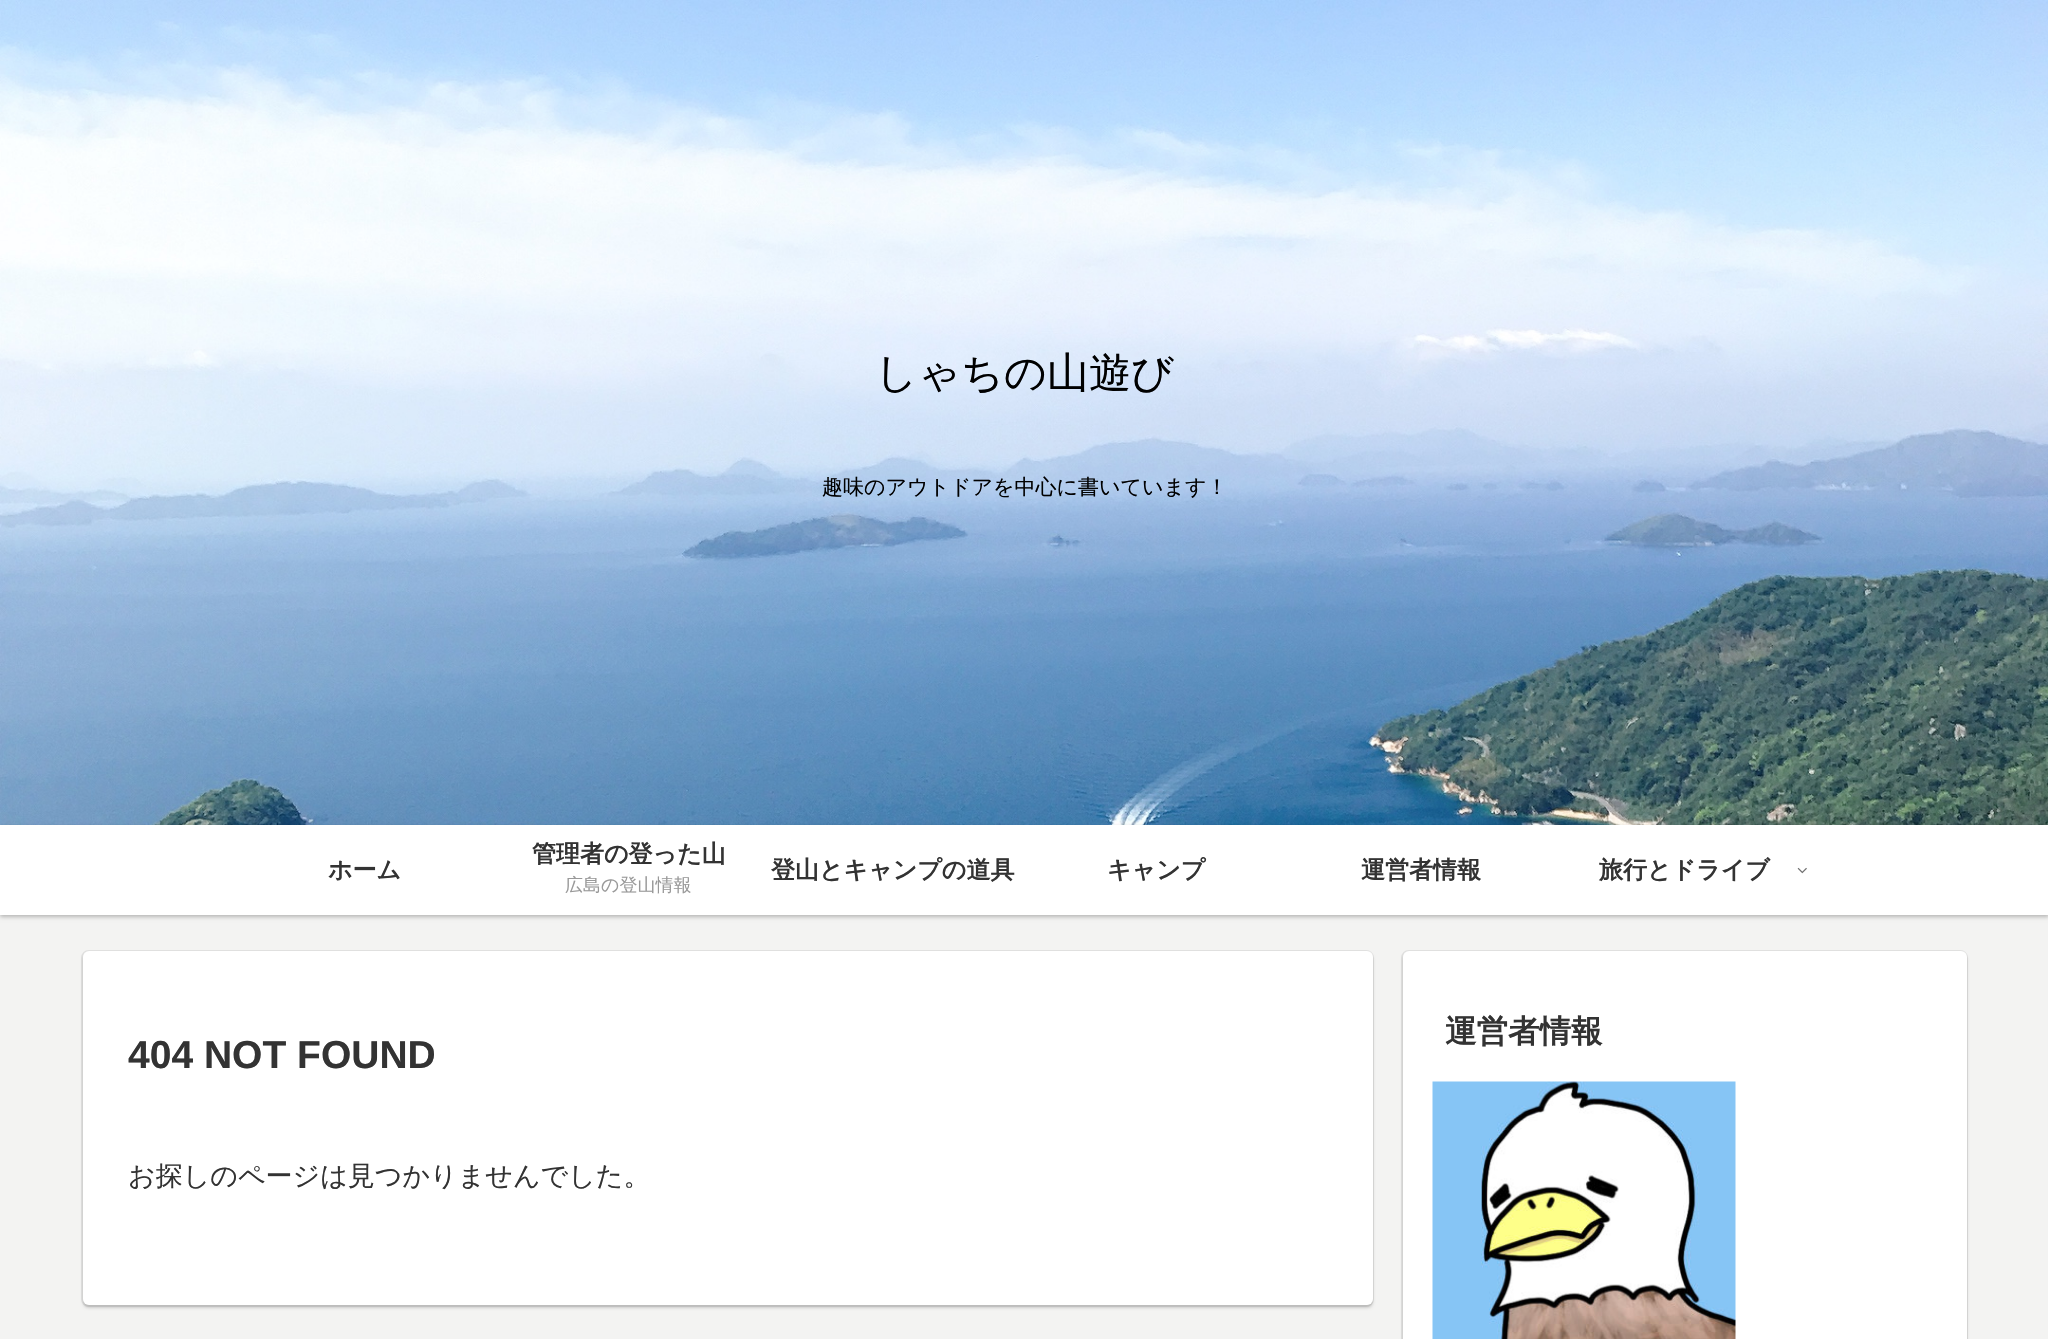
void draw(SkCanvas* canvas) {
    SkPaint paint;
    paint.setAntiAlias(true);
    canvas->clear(0xFFF3F3F2);
    paint.setColor(0xFFFFFFFF);
    canvas->drawRect(SkRect::MakeXYWH(0, 825, 2048, 90), paint);
    canvas->drawImageRect(SkImages::DeferredFromEncodedData(SkData::MakeFromFileName("img1.png")), SkRect::MakeXYWH(0, 0, 2048, 825), SkSamplingOptions());
    SkFont font1(fontMgr->matchFamilyStyle("WenQuanYi Zen Hei", SkFontStyle(500, SkFontStyle::kNormal_Width, SkFontStyle::kUpright_Slant)), 42);
    font1.setSubpixel(true);
    paint.setColor(0xFF000000);
    canvas->drawString("しゃちの山遊び", 875, 387, font1, paint);
    SkFont font2(fontMgr->matchFamilyStyle("WenQuanYi Zen Hei", SkFontStyle(500, SkFontStyle::kNormal_Width, SkFontStyle::kUpright_Slant)), 21);
    font2.setSubpixel(true);
    canvas->drawString("趣味のアウトドアを中心に書いています！", 822, 494, font2, paint);
    canvas->save();
    canvas->clipPath(SkPathBuilder(SkPathFillType::kEvenOdd).moveTo(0, 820).lineTo(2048, 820).lineTo(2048, 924).lineTo(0, 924).close().moveTo(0, 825).lineTo(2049, 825).lineTo(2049, 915).lineTo(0, 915).close().detach(), true);
    paint.setColor(0x40000000);
    paint.setMaskFilter(SkMaskFilter::MakeBlur(kNormal_SkBlurStyle, 2));
    canvas->drawRect(SkRect::MakeXYWH(0, 827, 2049, 90), paint);
    paint.setMaskFilter(nullptr);
    canvas->restore();
    SkFont font3(fontMgr->matchFamilyStyle("WenQuanYi Zen Hei", SkFontStyle::Bold()), 24);
    font3.setSubpixel(true);
    paint.setColor(0xFF333333);
    canvas->drawString("ホーム", 328, 878, font3, paint);
    canvas->drawString("管理者の登った山", 532, 862, font3, paint);
    SkFont font4(fontMgr->matchFamilyStyle("WenQuanYi Zen Hei", SkFontStyle(500, SkFontStyle::kNormal_Width, SkFontStyle::kUpright_Slant)), 18);
    font4.setSubpixel(true);
    paint.setColor(0xFF999999);
    canvas->drawString("広島の登山情報", 565, 891, font4, paint);
    paint.setColor(0xFF333333);
    canvas->drawString("登山とキャンプの道具", 771, 878, font3, paint);
    canvas->drawString("キャンプ", 1107, 878, font3, paint);
    canvas->drawString("運営者情報", 1361, 878, font3, paint);
    canvas->drawString("旅行とドライブ", 1599, 878, font3, paint);
    canvas->drawImageRect(SkImages::DeferredFromEncodedData(SkData::MakeFromFileName("img2.png")), SkRect::MakeXYWH(1797, 867, 10, 7), SkSamplingOptions());
    paint.setStyle(SkPaint::kStroke_Style);
    paint.setStrokeWidth(2);
    paint.setColor(0xFFE0E0DF);
    canvas->drawRoundRect(SkRect::MakeXYWH(1402, 951, 565, 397), 7, 7, paint);
    paint.setStyle(SkPaint::kFill_Style);
    paint.setColor(0x29000000);
    paint.setMaskFilter(SkMaskFilter::MakeBlur(kNormal_SkBlurStyle, 1.5f));
    canvas->drawRoundRect(SkRect::MakeXYWH(1403, 954, 564, 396), 6, 6, paint);
    paint.setMaskFilter(nullptr);
    paint.setColor(0xFFFFFFFF);
    canvas->drawRoundRect(SkRect::MakeXYWH(1403, 951, 564, 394), 6, 6, paint);
    SkFont font5(fontMgr->matchFamilyStyle("WenQuanYi Zen Hei", SkFontStyle::Bold()), 31.5f);
    font5.setSubpixel(true);
    paint.setColor(0xFF333333);
    canvas->drawString("運営者情報", 1445, 1042, font5, paint);
    canvas->drawImageRect(SkImages::DeferredFromEncodedData(SkData::MakeFromFileName("img3.png")), SkRect::MakeXYWH(1432, 1081, 304, 258), SkSamplingOptions());
    paint.setStyle(SkPaint::kStroke_Style);
    paint.setColor(0xFFE0E0DF);
    canvas->drawRoundRect(SkRect::MakeXYWH(82, 951, 1291, 355), 7, 7, paint);
    paint.setStyle(SkPaint::kFill_Style);
    paint.setColor(0x29000000);
    paint.setMaskFilter(SkMaskFilter::MakeBlur(kNormal_SkBlurStyle, 1.5f));
    canvas->drawRoundRect(SkRect::MakeXYWH(83, 954, 1290, 354), 6, 6, paint);
    paint.setMaskFilter(nullptr);
    paint.setColor(0xFFFFFFFF);
    canvas->drawRoundRect(SkRect::MakeXYWH(83, 951, 1290, 354), 6, 6, paint);
    SkFont font6(fontMgr->matchFamilyStyle("Liberation Sans", SkFontStyle::Bold()), 39);
    font6.setSubpixel(true);
    paint.setColor(0xFF333333);
    canvas->drawString("404 NOT FOUND", 128, 1068, font6, paint);
    SkFont font7(fontMgr->matchFamilyStyle("WenQuanYi Zen Hei", SkFontStyle(500, SkFontStyle::kNormal_Width, SkFontStyle::kUpright_Slant)), 27);
    font7.setSubpixel(true);
    canvas->drawString("お探しのページは見つかりませんでした。", 128, 1185, font7, paint);
}
